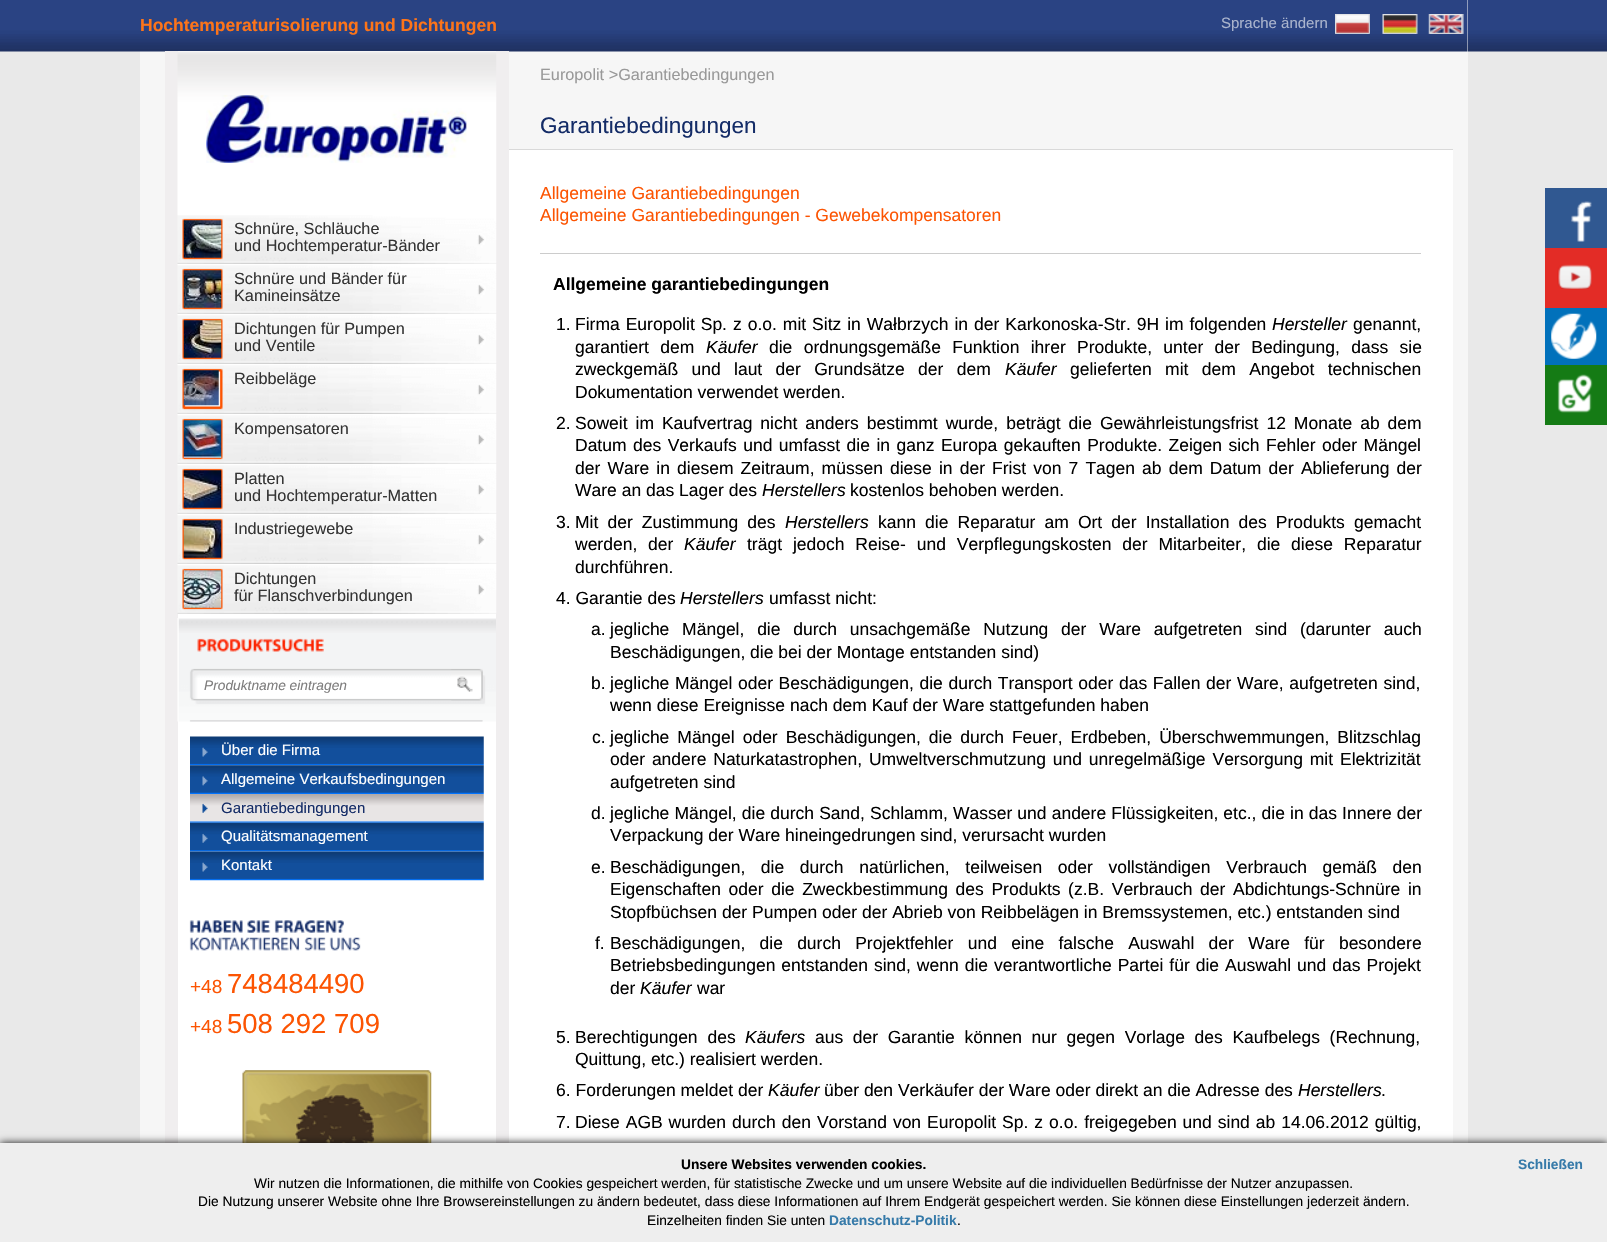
void draw(SkCanvas* canvas) {
    SkPaint paint;
    paint.setAntiAlias(true);
    auto spacedText = [&](const char* s, float x, float y, const SkFont& font, const SkPaint& ink, float letter, float word) {
        std::vector<SkGlyphID> glyphs(font.countText(s, strlen(s), SkTextEncoding::kUTF8));
        std::vector<float> xs(glyphs.size());
        font.textToGlyphs(s, strlen(s), SkTextEncoding::kUTF8, glyphs);
        font.getXPos(glyphs, xs, x);
        float extra = 0;
        for (size_t i = 0; i < glyphs.size(); i++) {
            xs[i] += extra;
            extra += letter + word * (glyphs[i] == font.unicharToGlyph(' '));
        }
        canvas->drawTextBlob(SkTextBlob::MakeFromPosHGlyphs(glyphs, xs, y, font), 0, 0, ink);
    };
    canvas->clear(0xFFE9E9E9);
    canvas->drawImageRect(SkImages::DeferredFromEncodedData(SkData::MakeFromFileName("img1.png")), SkRect::MakeXYWH(0, 0, 1607, 52), SkSamplingOptions());
    paint.setColor(0xFFF6F6F6);
    canvas->drawRect(SkRect::MakeXYWH(140, 0, 1328, 1143), paint);
    canvas->drawImageRect(SkImages::DeferredFromEncodedData(SkData::MakeFromFileName("img2.png")), SkRect::MakeXYWH(140, 0, 1328, 52), SkSamplingOptions());
    SkFont font1(fontMgr->matchFamilyStyle("Liberation Sans", SkFontStyle::Bold()), 17.5f);
    font1.setSubpixel(true);
    paint.setColor(0xFFFD7419);
    canvas->drawString("Hochtemperaturisolierung und Dichtungen", 140, 31, font1, paint);
    SkFont font2(fontMgr->matchFamilyStyle("Liberation Sans", SkFontStyle::Normal()), 15);
    font2.setSubpixel(true);
    paint.setColor(0xFFAAB4CD);
    canvas->drawString("Sprache ändern", 1221, 28, font2, paint);
    canvas->drawImageRect(SkImages::DeferredFromEncodedData(SkData::MakeFromFileName("img3.png")), SkRect::MakeXYWH(1335, 14, 35, 20), SkSamplingOptions());
    canvas->drawImageRect(SkImages::DeferredFromEncodedData(SkData::MakeFromFileName("img4.png")), SkRect::MakeXYWH(1382, 14, 36, 20), SkSamplingOptions());
    canvas->drawImageRect(SkImages::DeferredFromEncodedData(SkData::MakeFromFileName("img5.png")), SkRect::MakeXYWH(1428, 14, 36, 20), SkSamplingOptions());
    paint.setColor(0xFFFFFFFF);
    canvas->drawRect(SkRect::MakeXYWH(178, 51, 318, 1092), paint);
    paint.setColor(0xFFF0EEEF);
    canvas->drawRect(SkRect::MakeXYWH(496, 51, 13, 1092), paint);
    canvas->drawRect(SkRect::MakeXYWH(165, 51, 13, 1092), paint);
    canvas->drawImageRect(SkImages::DeferredFromEncodedData(SkData::MakeFromFileName("img6.png")), SkRect::MakeXYWH(177, 51, 320, 163), SkSamplingOptions());
    canvas->drawImageRect(SkImages::DeferredFromEncodedData(SkData::MakeFromFileName("img7.png")), SkRect::MakeXYWH(177, 214, 320, 50), SkSamplingOptions());
    canvas->drawImageRect(SkImages::DeferredFromEncodedData(SkData::MakeFromFileName("img8.png")), SkRect::MakeXYWH(183, 220, 39, 38), SkSamplingOptions());
    SkFont font3(fontMgr->matchFamilyStyle("Liberation Sans", SkFontStyle::Normal()), 16.25f);
    font3.setSubpixel(true);
    paint.setColor(0xFF343434);
    canvas->drawString("Schnüre, Schläuche", 234, 234, font3, paint);
    canvas->drawString("und Hochtemperatur-Bänder", 234, 251, font3, paint);
    canvas->drawImageRect(SkImages::DeferredFromEncodedData(SkData::MakeFromFileName("img7.png")), SkRect::MakeXYWH(177, 264, 320, 50), SkSamplingOptions());
    canvas->drawImageRect(SkImages::DeferredFromEncodedData(SkData::MakeFromFileName("img9.png")), SkRect::MakeXYWH(183, 270, 39, 38), SkSamplingOptions());
    canvas->drawString("Schnüre und Bänder für", 234, 284, font3, paint);
    canvas->drawString("Kamineinsätze", 234, 301, font3, paint);
    canvas->drawImageRect(SkImages::DeferredFromEncodedData(SkData::MakeFromFileName("img7.png")), SkRect::MakeXYWH(177, 314, 320, 50), SkSamplingOptions());
    canvas->drawImageRect(SkImages::DeferredFromEncodedData(SkData::MakeFromFileName("img10.png")), SkRect::MakeXYWH(183, 320, 39, 38), SkSamplingOptions());
    canvas->drawString("Dichtungen für Pumpen", 234, 334, font3, paint);
    canvas->drawString("und Ventile", 234, 351, font3, paint);
    canvas->drawImageRect(SkImages::DeferredFromEncodedData(SkData::MakeFromFileName("img7.png")), SkRect::MakeXYWH(177, 364, 320, 50), SkSamplingOptions());
    canvas->drawImageRect(SkImages::DeferredFromEncodedData(SkData::MakeFromFileName("img11.png")), SkRect::MakeXYWH(183, 370, 36, 36), SkSamplingOptions());
    canvas->drawString("Reibbeläge", 234, 384, font3, paint);
    canvas->drawImageRect(SkImages::DeferredFromEncodedData(SkData::MakeFromFileName("img7.png")), SkRect::MakeXYWH(177, 414, 320, 50), SkSamplingOptions());
    canvas->drawImageRect(SkImages::DeferredFromEncodedData(SkData::MakeFromFileName("img12.png")), SkRect::MakeXYWH(183, 420, 39, 38), SkSamplingOptions());
    canvas->drawString("Kompensatoren", 234, 434, font3, paint);
    canvas->drawImageRect(SkImages::DeferredFromEncodedData(SkData::MakeFromFileName("img7.png")), SkRect::MakeXYWH(177, 464, 320, 50), SkSamplingOptions());
    canvas->drawImageRect(SkImages::DeferredFromEncodedData(SkData::MakeFromFileName("img13.png")), SkRect::MakeXYWH(183, 470, 39, 38), SkSamplingOptions());
    canvas->drawString("Platten", 234, 484, font3, paint);
    canvas->drawString("und Hochtemperatur-Matten", 234, 501, font3, paint);
    canvas->drawImageRect(SkImages::DeferredFromEncodedData(SkData::MakeFromFileName("img7.png")), SkRect::MakeXYWH(177, 514, 320, 50), SkSamplingOptions());
    canvas->drawImageRect(SkImages::DeferredFromEncodedData(SkData::MakeFromFileName("img14.png")), SkRect::MakeXYWH(183, 520, 39, 38), SkSamplingOptions());
    canvas->drawString("Industriegewebe", 234, 534, font3, paint);
    canvas->drawImageRect(SkImages::DeferredFromEncodedData(SkData::MakeFromFileName("img15.png")), SkRect::MakeXYWH(177, 564, 320, 50), SkSamplingOptions());
    canvas->drawImageRect(SkImages::DeferredFromEncodedData(SkData::MakeFromFileName("img16.png")), SkRect::MakeXYWH(183, 570, 39, 38), SkSamplingOptions());
    canvas->drawString("Dichtungen", 234, 584, font3, paint);
    canvas->drawString("für Flanschverbindungen", 234, 601, font3, paint);
    canvas->drawImageRect(SkImages::DeferredFromEncodedData(SkData::MakeFromFileName("img17.png")), SkRect::MakeXYWH(177, 618, 319, 104), SkSamplingOptions());
    canvas->drawImageRect(SkImages::DeferredFromEncodedData(SkData::MakeFromFileName("img18.png")), SkRect::MakeXYWH(197, 638, 127, 14), SkSamplingOptions());
    SkFont font4(fontMgr->matchFamilyStyle("Liberation Sans", SkFontStyle::Italic()), 13.75f);
    font4.setSubpixel(true);
    paint.setColor(0xFF7E7D7D);
    canvas->drawString("Produktname eintragen", 204, 690, font4, paint);
    canvas->drawImageRect(SkImages::DeferredFromEncodedData(SkData::MakeFromFileName("img19.png")), SkRect::MakeXYWH(451, 669, 32, 32), SkSamplingOptions());
    canvas->drawImageRect(SkImages::DeferredFromEncodedData(SkData::MakeFromFileName("img20.png")), SkRect::MakeXYWH(190, 736, 294, 30), SkSamplingOptions());
    paint.setColor(0xFFFFFFFF);
    canvas->drawString("Über die Firma", 221, 755, font2, paint);
    canvas->drawImageRect(SkImages::DeferredFromEncodedData(SkData::MakeFromFileName("img21.png")), SkRect::MakeXYWH(190, 765, 294, 29), SkSamplingOptions());
    canvas->drawString("Allgemeine Verkaufsbedingungen", 221, 784, font2, paint);
    canvas->drawImageRect(SkImages::DeferredFromEncodedData(SkData::MakeFromFileName("img22.png")), SkRect::MakeXYWH(190, 794, 294, 29), SkSamplingOptions());
    paint.setColor(0xFF142C67);
    canvas->drawString("Garantiebedingungen", 221, 813, font2, paint);
    canvas->drawImageRect(SkImages::DeferredFromEncodedData(SkData::MakeFromFileName("img23.png")), SkRect::MakeXYWH(190, 822, 294, 30), SkSamplingOptions());
    paint.setColor(0xFFFFFFFF);
    canvas->drawString("Qualitätsmanagement", 221, 841, font2, paint);
    canvas->drawImageRect(SkImages::DeferredFromEncodedData(SkData::MakeFromFileName("img24.png")), SkRect::MakeXYWH(190, 851, 294, 30), SkSamplingOptions());
    canvas->drawString("Kontakt", 221, 870, font2, paint);
    canvas->drawImageRect(SkImages::DeferredFromEncodedData(SkData::MakeFromFileName("img25.png")), SkRect::MakeXYWH(189, 920, 54, 13), SkSamplingOptions());
    canvas->drawImageRect(SkImages::DeferredFromEncodedData(SkData::MakeFromFileName("img26.png")), SkRect::MakeXYWH(247, 920, 24, 13), SkSamplingOptions());
    canvas->drawImageRect(SkImages::DeferredFromEncodedData(SkData::MakeFromFileName("img27.png")), SkRect::MakeXYWH(274, 920, 70, 13), SkSamplingOptions());
    canvas->drawImageRect(SkImages::DeferredFromEncodedData(SkData::MakeFromFileName("img28.png")), SkRect::MakeXYWH(189, 937, 111, 14), SkSamplingOptions());
    canvas->drawImageRect(SkImages::DeferredFromEncodedData(SkData::MakeFromFileName("img29.png")), SkRect::MakeXYWH(304, 937, 22, 14), SkSamplingOptions());
    canvas->drawImageRect(SkImages::DeferredFromEncodedData(SkData::MakeFromFileName("img30.png")), SkRect::MakeXYWH(329, 937, 32, 14), SkSamplingOptions());
    SkFont font5(fontMgr->matchFamilyStyle("Liberation Sans", SkFontStyle::Normal()), 19);
    font5.setSubpixel(true);
    paint.setColor(0xFFFC5402);
    canvas->drawString("+48", 190, 993, font5, paint);
    SkFont font6(fontMgr->matchFamilyStyle("Liberation Sans", SkFontStyle::Normal()), 27.5f);
    font6.setSubpixel(true);
    canvas->drawString("748484490", 227, 993, font6, paint);
    canvas->drawString("+48", 190, 1033, font5, paint);
    canvas->drawString("508 292 709", 227, 1033, font6, paint);
    canvas->drawImageRect(SkImages::DeferredFromEncodedData(SkData::MakeFromFileName("img31.png")), SkRect::MakeXYWH(242, 1070, 190, 73), SkSamplingOptions());
    paint.setColor(0xFF999999);
    canvas->drawString("Europolit >Garantiebedingungen", 540, 80, font3, paint);
    SkFont font7(fontMgr->matchFamilyStyle("Liberation Sans", SkFontStyle::Normal()), 22.5f);
    font7.setSubpixel(true);
    paint.setColor(0xFF142C67);
    canvas->drawString("Garantiebedingungen", 540, 133, font7, paint);
    paint.setColor(0xFFFFFFFF);
    canvas->drawRect(SkRect::MakeXYWH(509, 150, 944, 993), paint);
    paint.setColor(0xFFD9D9D9);
    canvas->drawRect(SkRect::MakeXYWH(509, 149, 944, 1), paint);
    SkFont font8(fontMgr->matchFamilyStyle("Liberation Sans", SkFontStyle::Normal()), 17.5f);
    font8.setSubpixel(true);
    paint.setColor(0xFFFC5402);
    canvas->drawString("Allgemeine Garantiebedingungen", 540, 199, font8, paint);
    canvas->drawString("Allgemeine Garantiebedingungen - Gewebekompensatoren", 540, 221, font8, paint);
    paint.setColor(0xFFCCCCCC);
    canvas->drawRect(SkRect::MakeXYWH(540, 253, 881, 1), paint);
    paint.setColor(0xFF000000);
    canvas->drawString("Allgemeine garantiebedingungen", 553, 290, font1, paint);
    canvas->drawString("1.", 556, 330, font8, paint);
    spacedText("Firma Europolit Sp. z o.o. mit Sitz in Wałbrzych in der Karkonoska-Str. 9H im folgenden", 575, 330, font8, paint, 0, 1.1f);
    SkFont font9(fontMgr->matchFamilyStyle("Liberation Sans", SkFontStyle::Italic()), 17.5f);
    font9.setSubpixel(true);
    canvas->drawString("Hersteller", 1272, 330, font9, paint);
    canvas->drawString("genannt,", 1353, 330, font8, paint);
    spacedText("garantiert dem", 575, 353, font8, paint, 0, 6.5f);
    canvas->drawString("Käufer", 706, 353, font9, paint);
    spacedText("die ordnungsgemäße Funktion ihrer Produkte, unter der Bedingung, dass sie", 769, 353, font8, paint, 0, 6.5f);
    spacedText("zweckgemäß und laut der Grundsätze der dem", 575, 375, font8, paint, 0, 8.5f);
    canvas->drawString("Käufer", 1005, 375, font9, paint);
    spacedText("gelieferten mit dem Angebot technischen", 1070, 375, font8, paint, 0, 8.5f);
    canvas->drawString("Dokumentation verwendet werden.", 575, 398, font8, paint);
    canvas->drawString("2.", 556, 429, font8, paint);
    spacedText("Soweit im Kaufvertrag nicht anders bestimmt wurde, beträgt die Gewährleistungsfrist 12 Monate ab dem", 575, 429, font8, paint, 0, 3.1f);
    spacedText("Datum des Verkaufs und umfasst die in ganz Europa gekauften Produkte. Zeigen sich Fehler oder Mängel", 575, 451, font8, paint, 0, 1.6f);
    spacedText("der Ware in diesem Zeitraum, müssen diese in der Frist von 7 Tagen ab dem Datum der Ablieferung der", 575, 474, font8, paint, 0, 2.25f);
    canvas->drawString("Ware an das Lager des", 575, 496, font8, paint);
    canvas->drawString("Herstellers", 762, 496, font9, paint);
    canvas->drawString("kostenlos behoben werden.", 850, 496, font8, paint);
    canvas->drawString("3.", 556, 528, font8, paint);
    spacedText("Mit der Zustimmung des", 575, 528, font8, paint, 0, 4.25f);
    canvas->drawString("Herstellers", 785, 528, font9, paint);
    spacedText("kann die Reparatur am Ort der Installation des Produkts gemacht", 878, 528, font8, paint, 0, 4.25f);
    spacedText("werden, der", 575, 550, font8, paint, 0, 6);
    canvas->drawString("Käufer", 684, 550, font9, paint);
    spacedText("trägt jedoch Reise- und Verpflegungskosten der Mitarbeiter, die diese Reparatur", 747, 550, font8, paint, 0, 6);
    canvas->drawString("durchführen.", 575, 573, font8, paint);
    canvas->drawString("4. Garantie des", 556, 604, font8, paint);
    canvas->drawString("Herstellers", 680, 604, font9, paint);
    canvas->drawString("umfasst nicht:", 769, 604, font8, paint);
    canvas->drawString("a.", 591, 635, font8, paint);
    spacedText("jegliche Mängel, die durch unsachgemäße Nutzung der Ware aufgetreten sind (darunter auch", 610, 635, font8, paint, 0, 7.9f);
    canvas->drawString("Beschädigungen, die bei der Montage entstanden sind)", 610, 658, font8, paint);
    canvas->drawString("b.", 591, 689, font8, paint);
    spacedText("jegliche Mängel oder Beschädigungen, die durch Transport oder das Fallen der Ware, aufgetreten sind,", 610, 689, font8, paint, 0, 0.75f);
    canvas->drawString("wenn diese Ereignisse nach dem Kauf der Ware stattgefunden haben", 610, 711, font8, paint);
    canvas->drawString("c.", 592, 743, font8, paint);
    spacedText("jegliche Mängel oder Beschädigungen, die durch Feuer, Erdbeben, Überschwemmungen, Blitzschlag", 610, 743, font8, paint, 0, 3.1f);
    spacedText("oder andere Naturkatastrophen, Umweltverschmutzung und unregelmäßige Versorgung mit Elektrizität", 610, 765, font8, paint, 0, 2);
    canvas->drawString("aufgetreten sind", 610, 788, font8, paint);
    canvas->drawString("d.", 591, 819, font8, paint);
    spacedText("jegliche Mängel, die durch Sand, Schlamm, Wasser und andere Flüssigkeiten, etc., die in das Innere der", 610, 819, font8, paint, 0, 0.25f);
    canvas->drawString("Verpackung der Ware hineingedrungen sind, verursacht wurden", 610, 841, font8, paint);
    canvas->drawString("e.", 591, 873, font8, paint);
    spacedText("Beschädigungen, die durch natürlichen, teilweisen oder vollständigen Verbrauch gemäß den", 610, 873, font8, paint, 0, 10.75f);
    spacedText("Eigenschaften oder die Zweckbestimmung des Produkts (z.B. Verbrauch der Abdichtungs-Schnüre in", 610, 895, font8, paint, 0, 2.75f);
    canvas->drawString("Stopfbüchsen der Pumpen oder der Abrieb von Reibbelägen in Bremssystemen, etc.) entstanden sind", 610, 918, font8, paint);
    canvas->drawString("f.", 595, 949, font8, paint);
    spacedText("Beschädigungen, die durch Projektfehler und eine falsche Auswahl der Ware für besondere", 610, 949, font8, paint, 0, 9.4f);
    spacedText("Betriebsbedingungen entstanden sind, wenn die verantwortliche Partei für die Auswahl und das Projekt", 610, 971, font8, paint, 0, 1.1f);
    canvas->drawString("der", 610, 994, font8, paint);
    canvas->drawString("Käufer", 640, 994, font9, paint);
    canvas->drawString("war", 697, 994, font8, paint);
    canvas->drawString("5.", 556, 1043, font8, paint);
    spacedText("Berechtigungen des", 575, 1043, font8, paint, 0, 5);
    canvas->drawString("Käufers", 745, 1043, font9, paint);
    spacedText("aus der Garantie können nur gegen Vorlage des Kaufbelegs (Rechnung,", 815, 1043, font8, paint, 0, 4.75f);
    canvas->drawString("Quittung, etc.) realisiert werden.", 575, 1065, font8, paint);
    canvas->drawString("6. Forderungen meldet der", 556, 1096, font8, paint);
    canvas->drawString("Käufer", 768, 1096, font9, paint);
    canvas->drawString("über den Verkäufer der Ware oder direkt an die Adresse des", 824, 1096, font8, paint);
    canvas->drawString("Herstellers", 1298, 1096, font9, paint);
    canvas->drawString(".", 1381, 1096, font8, paint);
    canvas->drawString("7.", 556, 1128, font8, paint);
    spacedText("Diese AGB wurden durch den Vorstand von Europolit Sp. z o.o. freigegeben und sind ab 14.06.2012 gültig,", 575, 1128, font8, paint, 0, 1.1f);
    paint.setColor(0xFF305891);
    canvas->drawRect(SkRect::MakeXYWH(1545, 188, 62, 60), paint);
    canvas->drawImageRect(SkImages::DeferredFromEncodedData(SkData::MakeFromFileName("img32.png")), SkRect::MakeXYWH(1571, 201, 21, 41), SkSamplingOptions());
    paint.setColor(0xFFE32C26);
    canvas->drawRect(SkRect::MakeXYWH(1545, 248, 62, 60), paint);
    canvas->drawImageRect(SkImages::DeferredFromEncodedData(SkData::MakeFromFileName("img33.png")), SkRect::MakeXYWH(1557, 264, 35, 25), SkSamplingOptions());
    paint.setColor(0xFF0171BB);
    canvas->drawRect(SkRect::MakeXYWH(1545, 308, 62, 57), paint);
    canvas->drawImageRect(SkImages::DeferredFromEncodedData(SkData::MakeFromFileName("img34.png")), SkRect::MakeXYWH(1551, 313, 46, 46), SkSamplingOptions());
    paint.setColor(0xFF157B15);
    canvas->drawRect(SkRect::MakeXYWH(1545, 365, 62, 60), paint);
    canvas->drawImageRect(SkImages::DeferredFromEncodedData(SkData::MakeFromFileName("img35.png")), SkRect::MakeXYWH(1557, 374, 36, 39), SkSamplingOptions());
    paint.setColor(0xFF111111);
    paint.setMaskFilter(SkMaskFilter::MakeBlur(kNormal_SkBlurStyle, 4));
    canvas->drawRect(SkRect::MakeXYWH(0, 1143, 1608, 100), paint);
    paint.setMaskFilter(nullptr);
    paint.setColor(0xFFEEEEEE);
    canvas->drawRect(SkRect::MakeXYWH(0, 1143, 1607, 99), paint);
    SkFont font10(fontMgr->matchFamilyStyle("Liberation Sans", SkFontStyle::Bold()), 13.75f);
    font10.setSubpixel(true);
    paint.setColor(0xFF000000);
    canvas->drawString("Unsere Websites verwenden cookies.", 681, 1169, font10, paint);
    paint.setColor(0xFF367AA9);
    canvas->drawString("Schließen", 1518, 1169, font10, paint);
    SkFont font11(fontMgr->matchFamilyStyle("Liberation Sans", SkFontStyle::Normal()), 13.75f);
    font11.setSubpixel(true);
    paint.setColor(0xFF000000);
    canvas->drawString("Wir nutzen die Informationen, die mithilfe von Cookies gespeichert werden, für statistische Zwecke und um unsere Website auf die individuellen Bedürfnisse der Nutzer anzupassen.", 254, 1188, font11, paint);
    canvas->drawString("Die Nutzung unserer Website ohne Ihre Browsereinstellungen zu ändern bedeutet, dass diese Informationen auf Ihrem Endgerät gespeichert werden. Sie können diese Einstellungen jederzeit ändern.", 198, 1206, font11, paint);
    canvas->drawString("Einzelheiten finden Sie unten", 647, 1225, font11, paint);
    paint.setColor(0xFF367AA9);
    canvas->drawString("Datenschutz-Politik", 829, 1225, font10, paint);
    paint.setColor(0xFF000000);
    canvas->drawString(".", 957, 1225, font11, paint);
}
